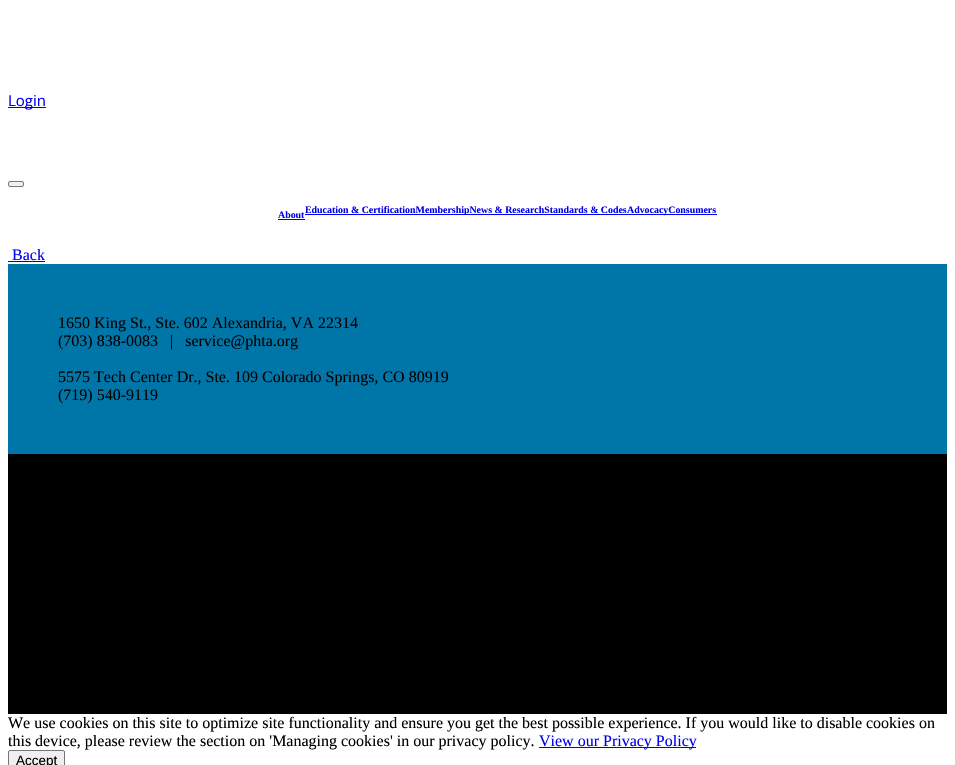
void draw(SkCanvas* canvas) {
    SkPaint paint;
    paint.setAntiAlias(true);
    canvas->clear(0xFFFFFFFF);
    paint.setColor(0xFF0000EE);
    canvas->drawRect(SkRect::MakeXYWH(8, 107, 38, 1), paint);
    SkFont font1(fontMgr->matchFamilyStyle("Open Sans", SkFontStyle::Normal()), 15);
    font1.setSubpixel(true);
    canvas->drawString("Login", 8, 106, font1, paint);
    paint.setColor(0xFFEFEFEF);
    canvas->drawRoundRect(SkRect::MakeXYWH(8.5f, 181.5f, 15, 5), 1.5f, 1.5f, paint);
    paint.setStyle(SkPaint::kStroke_Style);
    paint.setStrokeWidth(1);
    paint.setColor(0xFF767676);
    canvas->drawRoundRect(SkRect::MakeXYWH(8.5f, 181.5f, 15, 5), 1.5f, 1.5f, paint);
    SkFont font2(fontMgr->matchFamilyStyle("Liberation Serif", SkFontStyle::Bold()), 9.9f);
    font2.setSubpixel(true);
    paint.setStyle(SkPaint::kFill_Style);
    paint.setColor(0xFF0000EE);
    canvas->drawString("About", 278, 218, font2, paint);
    canvas->drawRect(SkRect::MakeXYWH(278, 219, 27, 1), paint);
    canvas->drawRect(SkRect::MakeXYWH(305, 214, 322, 1), paint);
    canvas->drawString("Education & CertificationMembershipNews & ResearchStandards & Codes", 305, 213, font2, paint);
    canvas->drawRect(SkRect::MakeXYWH(627, 214, 90, 1), paint);
    canvas->drawString("AdvocacyConsumers", 627, 213, font2, paint);
    SkFont font3(fontMgr->matchFamilyStyle("Liberation Serif", SkFontStyle::Normal()), 16);
    font3.setSubpixel(true);
    canvas->drawString("Back", 12, 260, font3, paint);
    canvas->drawRect(SkRect::MakeXYWH(8, 261, 37, 1), paint);
    paint.setColor(0xFF0076A8);
    canvas->drawRect(SkRect::MakeXYWH(8, 264, 939, 190), paint);
    paint.setColor(0xFF000000);
    canvas->drawString("1650 King St., Ste. 602 Alexandria, VA 22314", 58, 328, font3, paint);
    canvas->drawString("(703) 838-0083   |   service@phta.org", 58, 346, font3, paint);
    canvas->drawString("5575 Tech Center Dr., Ste. 109 Colorado Springs, CO 80919", 58, 382, font3, paint);
    canvas->drawString("(719) 540-9119", 58, 400, font3, paint);
    canvas->drawRect(SkRect::MakeXYWH(8, 454, 939, 260), paint);
    canvas->drawString("We use cookies on this site to optimize site functionality and ensure you get the best possible experience. If you would like to disable cookies on", 8, 728, font3, paint);
    canvas->drawString("this device, please review the section on 'Managing cookies' in our privacy policy.", 8, 746, font3, paint);
    paint.setColor(0xFF0000EE);
    canvas->drawRect(SkRect::MakeXYWH(539, 747, 157, 1), paint);
    canvas->drawString("View our Privacy Policy", 539, 746, font3, paint);
    paint.setColor(0xFFEFEFEF);
    canvas->drawRoundRect(SkRect::MakeXYWH(8.5f, 750.5f, 56, 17), 1.5f, 1.5f, paint);
    paint.setStyle(SkPaint::kStroke_Style);
    paint.setColor(0xFF767676);
    canvas->drawRoundRect(SkRect::MakeXYWH(8.5f, 750.5f, 56, 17), 1.5f, 1.5f, paint);
    SkFont font4(fontMgr->matchFamilyStyle("Liberation Sans", SkFontStyle::Normal()), 13.5f);
    font4.setSubpixel(true);
    paint.setStyle(SkPaint::kFill_Style);
    paint.setColor(0xFF000000);
    canvas->drawString("Accept", 16, 765, font4, paint);
}
